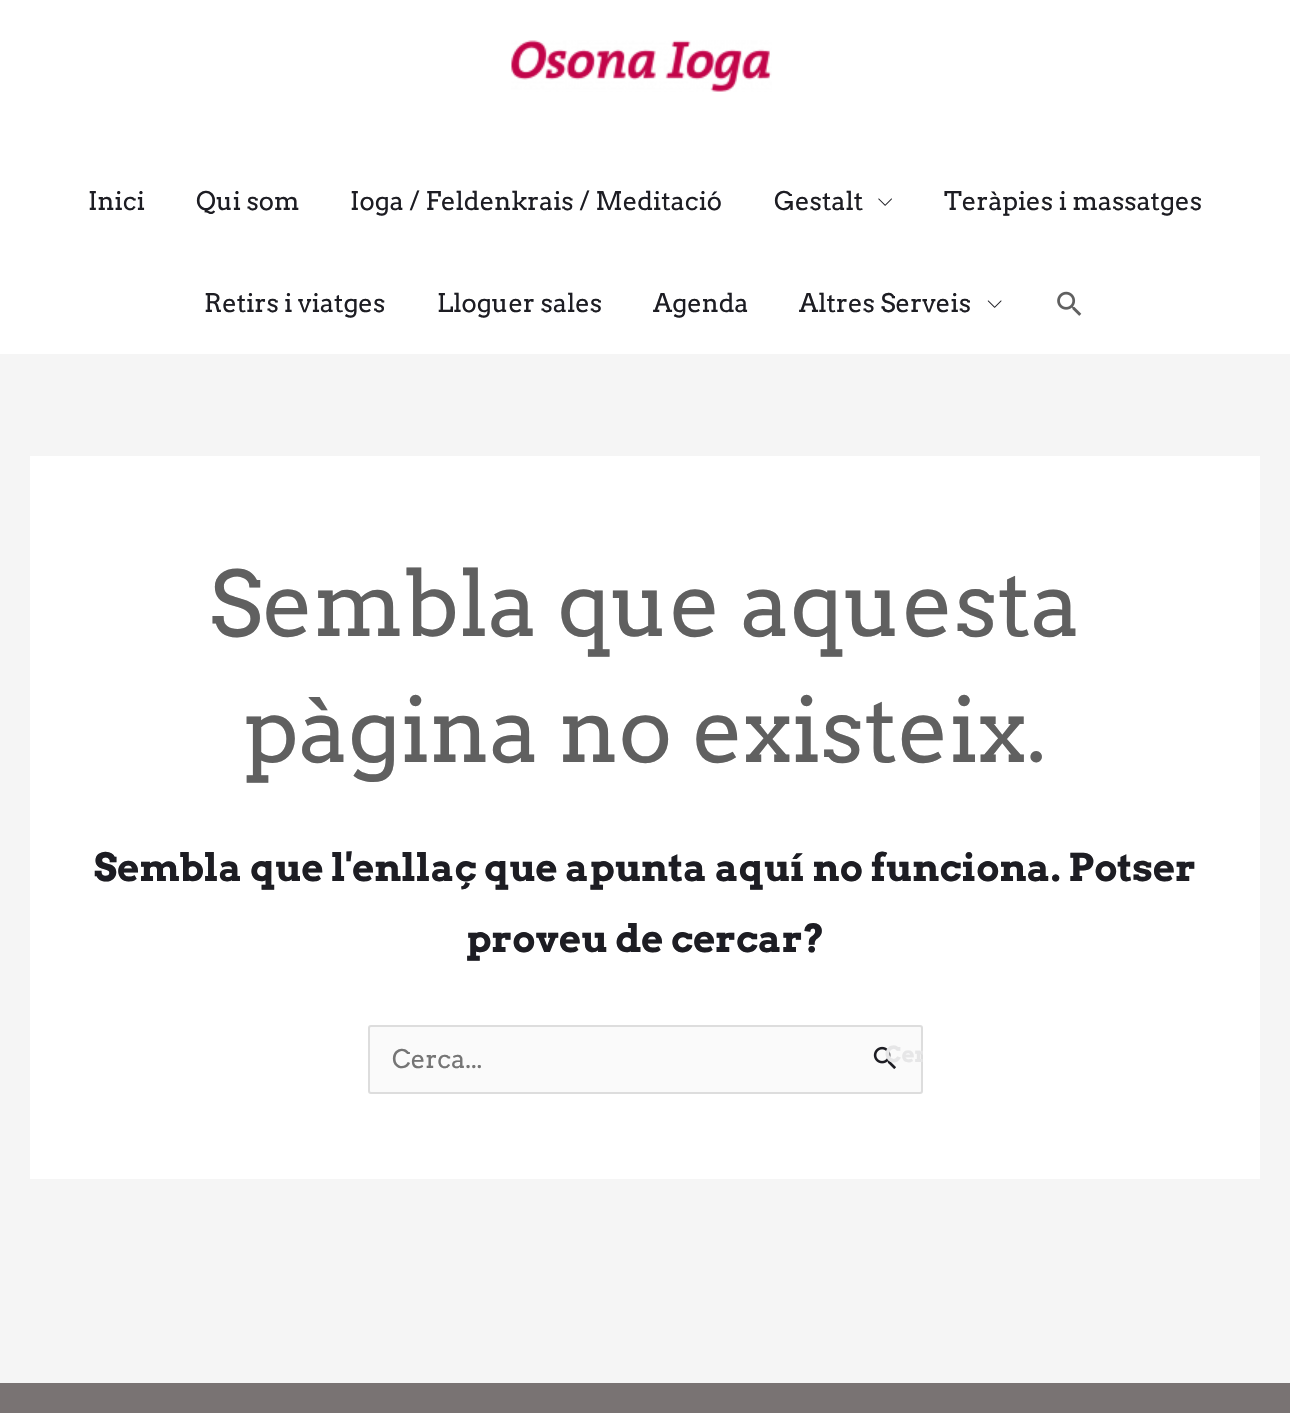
void draw(SkCanvas* canvas) {
    SkPaint paint;
    paint.setAntiAlias(true);
    canvas->clear(0xFFF5F5F5);
    paint.setColor(0xFFFFFFFF);
    canvas->drawRect(SkRect::MakeXYWH(0, 0, 1290, 354), paint);
    canvas->drawImageRect(SkImages::DeferredFromEncodedData(SkData::MakeFromFileName("img1.png")), SkRect::MakeXYWH(511, 40, 261, 52), SkSamplingOptions());
    SkFont font1(fontMgr->matchFamilyStyle("Arvo", SkFontStyle::Normal()), 25.5f);
    font1.setSubpixel(true);
    paint.setColor(0xFF1D1D23);
    canvas->drawString("Inici", 88, 210, font1, paint);
    canvas->drawString("Qui som", 196, 210, font1, paint);
    canvas->drawString("Ioga / Feldenkrais / Meditació", 350, 210, font1, paint);
    canvas->drawString("Gestalt", 774, 210, font1, paint);
    canvas->drawImageRect(SkImages::DeferredFromEncodedData(SkData::MakeFromFileName("img2.png")), SkRect::MakeXYWH(878, 198, 14, 8), SkSamplingOptions());
    canvas->drawString("Teràpies i massatges", 944, 210, font1, paint);
    canvas->drawString("Retirs i viatges", 204, 312, font1, paint);
    canvas->drawString("Lloguer sales", 437, 312, font1, paint);
    canvas->drawString("Agenda", 653, 312, font1, paint);
    canvas->drawString("Altres Serveis", 799, 312, font1, paint);
    canvas->drawImageRect(SkImages::DeferredFromEncodedData(SkData::MakeFromFileName("img3.png")), SkRect::MakeXYWH(987, 300, 15, 8), SkSamplingOptions());
    canvas->drawImageRect(SkImages::DeferredFromEncodedData(SkData::MakeFromFileName("img4.png")), SkRect::MakeXYWH(1057, 291, 25, 25), SkSamplingOptions());
    paint.setColor(0xFFFFFFFF);
    canvas->drawRect(SkRect::MakeXYWH(30, 456, 1230, 723), paint);
    SkFont font2(fontMgr->matchFamilyStyle("Arvo", SkFontStyle::Normal()), 90);
    font2.setSubpixel(true);
    paint.setColor(0xFF606060);
    canvas->drawString("Sembla que aquesta", 209, 636, font2, paint);
    canvas->drawString("pàgina no existeix.", 244, 762, font2, paint);
    SkFont font3(fontMgr->matchFamilyStyle("Arvo", SkFontStyle::Bold()), 38.25f);
    font3.setSubpixel(true);
    paint.setColor(0xFF1D1D23);
    canvas->drawString("Sembla que l'enllaç que apunta aquí no funciona. Potser", 94, 881, font3, paint);
    canvas->drawString("proveu de cercar?", 466, 952, font3, paint);
    paint.setColor(0xFFFAFAFA);
    canvas->drawRoundRect(SkRect::MakeXYWH(369, 1026, 553, 67), 2, 2, paint);
    paint.setStyle(SkPaint::kStroke_Style);
    paint.setStrokeWidth(2);
    paint.setColor(0xFFDDDDDD);
    canvas->drawRoundRect(SkRect::MakeXYWH(369, 1026, 553, 67), 2, 2, paint);
    paint.setStyle(SkPaint::kFill_Style);
    paint.setColor(0xFF757575);
    canvas->drawString("Cerca...", 392, 1068, font1, paint);
    canvas->drawImageRect(SkImages::DeferredFromEncodedData(SkData::MakeFromFileName("img5.png")), SkRect::MakeXYWH(873, 1046, 23, 23), SkSamplingOptions());
    canvas->save();
    canvas->clipPath(SkPathBuilder().moveTo(858, 1025).lineTo(920, 1025).cubicTo(921.5f, 1025, 923, 1026.5f, 923, 1028).lineTo(923, 1083).cubicTo(923, 1084.5f, 921.5f, 1086, 920, 1086).lineTo(858, 1086).cubicTo(856.5f, 1086, 855, 1084.5f, 855, 1083).lineTo(855, 1028).cubicTo(855, 1026.5f, 856.5f, 1025, 858, 1025).close().detach(), true);
    SkFont font4(fontMgr->matchFamilyStyle("Arvo", SkFontStyle::Bold()), 22);
    font4.setSubpixel(true);
    paint.setColor(0xFFE6E6E7);
    canvas->drawString("Cer", 885, 1062, font4, paint);
    canvas->restore();
    paint.setColor(0xFF797373);
    canvas->drawRect(SkRect::MakeXYWH(0, 1383, 1290, 30), paint);
}
